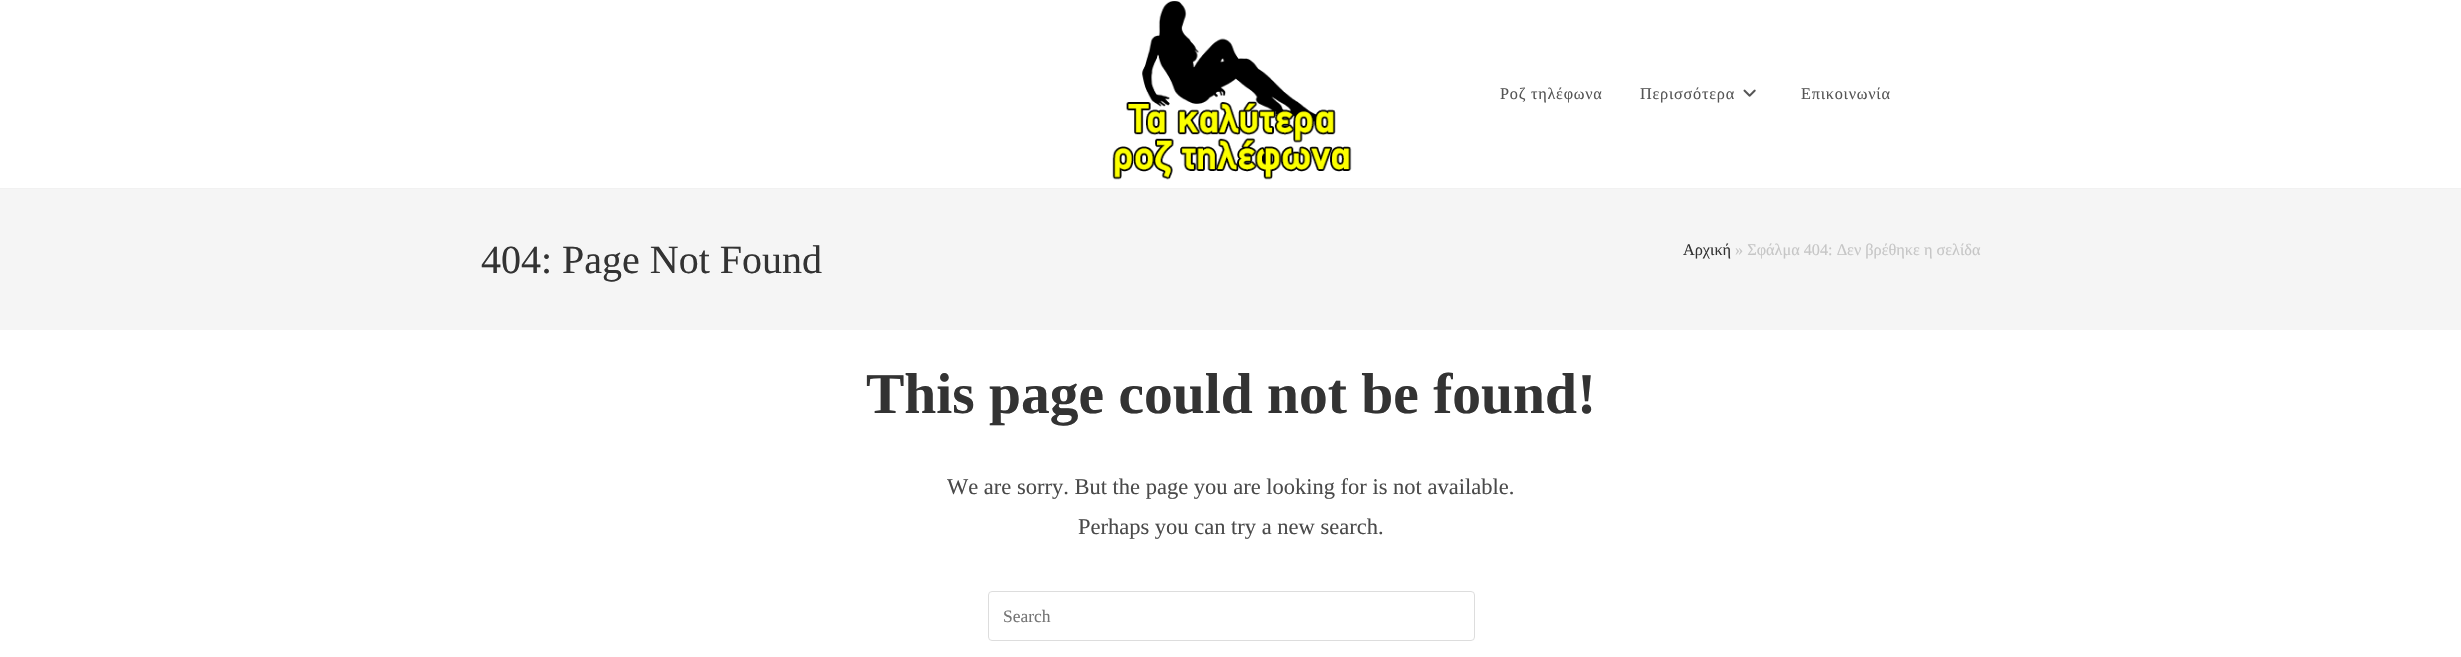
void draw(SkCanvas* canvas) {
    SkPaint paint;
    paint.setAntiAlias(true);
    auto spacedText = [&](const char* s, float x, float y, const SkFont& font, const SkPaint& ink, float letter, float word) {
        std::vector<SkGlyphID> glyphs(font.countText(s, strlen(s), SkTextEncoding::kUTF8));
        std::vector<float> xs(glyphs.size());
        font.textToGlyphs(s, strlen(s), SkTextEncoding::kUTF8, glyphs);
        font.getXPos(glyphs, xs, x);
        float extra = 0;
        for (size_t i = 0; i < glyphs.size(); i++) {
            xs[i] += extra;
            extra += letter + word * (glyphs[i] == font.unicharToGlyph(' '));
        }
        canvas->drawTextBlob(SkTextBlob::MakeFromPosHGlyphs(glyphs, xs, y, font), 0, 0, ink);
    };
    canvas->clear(0xFFFFFFFF);
    paint.setColor(0xFFF1F1F1);
    canvas->drawRect(SkRect::MakeXYWH(0, 188, 2461, 1), paint);
    canvas->drawImageRect(SkImages::DeferredFromEncodedData(SkData::MakeFromFileName("img1.png")), SkRect::MakeXYWH(1112, 1, 240, 179), SkSamplingOptions());
    SkFont font1(fontMgr->matchFamilyStyle("Liberation Serif", SkFontStyle::Normal()), 16.25f);
    font1.setSubpixel(true);
    paint.setColor(0xFF555555);
    spacedText("Ροζ τηλέφωνα", 1500, 99, font1, paint, 0.75f, 0);
    spacedText("Περισσότερα", 1640, 99, font1, paint, 0.75f, 0);
    canvas->drawImageRect(SkImages::DeferredFromEncodedData(SkData::MakeFromFileName("img2.png")), SkRect::MakeXYWH(1743, 89, 13, 8), SkSamplingOptions());
    spacedText("Επικοινωνία", 1801, 99, font1, paint, 0.75f, 0);
    paint.setColor(0xFFF5F5F5);
    canvas->drawRect(SkRect::MakeXYWH(0, 189, 2461, 141), paint);
    SkFont font2(fontMgr->matchFamilyStyle("Liberation Serif", SkFontStyle::Normal()), 40);
    font2.setSubpixel(true);
    paint.setColor(0xFF333333);
    canvas->drawString("404: Page Not Found", 481, 273, font2, paint);
    canvas->drawString("Αρχική", 1683, 255, font1, paint);
    paint.setColor(0xFFC6C6C6);
    canvas->drawString("» Σφάλμα 404: Δεν βρέθηκε η σελίδα", 1735, 255, font1, paint);
    SkFont font3(fontMgr->matchFamilyStyle("Liberation Serif", SkFontStyle::Bold()), 57.5f);
    font3.setSubpixel(true);
    paint.setColor(0xFF333333);
    canvas->drawString("This page could not be found!", 866, 413, font3, paint);
    SkFont font4(fontMgr->matchFamilyStyle("Liberation Serif", SkFontStyle::Normal()), 22.5f);
    font4.setSubpixel(true);
    paint.setColor(0xFF4A4A4A);
    canvas->drawString("We are sorry. But the page you are looking for is not available.", 947, 494, font4, paint);
    canvas->drawString("Perhaps you can try a new search.", 1078, 534, font4, paint);
    paint.setStyle(SkPaint::kStroke_Style);
    paint.setStrokeWidth(1);
    paint.setColor(0xFFDDDDDD);
    canvas->drawRoundRect(SkRect::MakeXYWH(988.5f, 591.5f, 486, 49), 3.5f, 3.5f, paint);
    SkFont font5(fontMgr->matchFamilyStyle("Liberation Serif", SkFontStyle::Normal()), 17.5f);
    font5.setSubpixel(true);
    paint.setStyle(SkPaint::kFill_Style);
    paint.setColor(0xFF757575);
    canvas->drawString("Search", 1003, 622, font5, paint);
}
